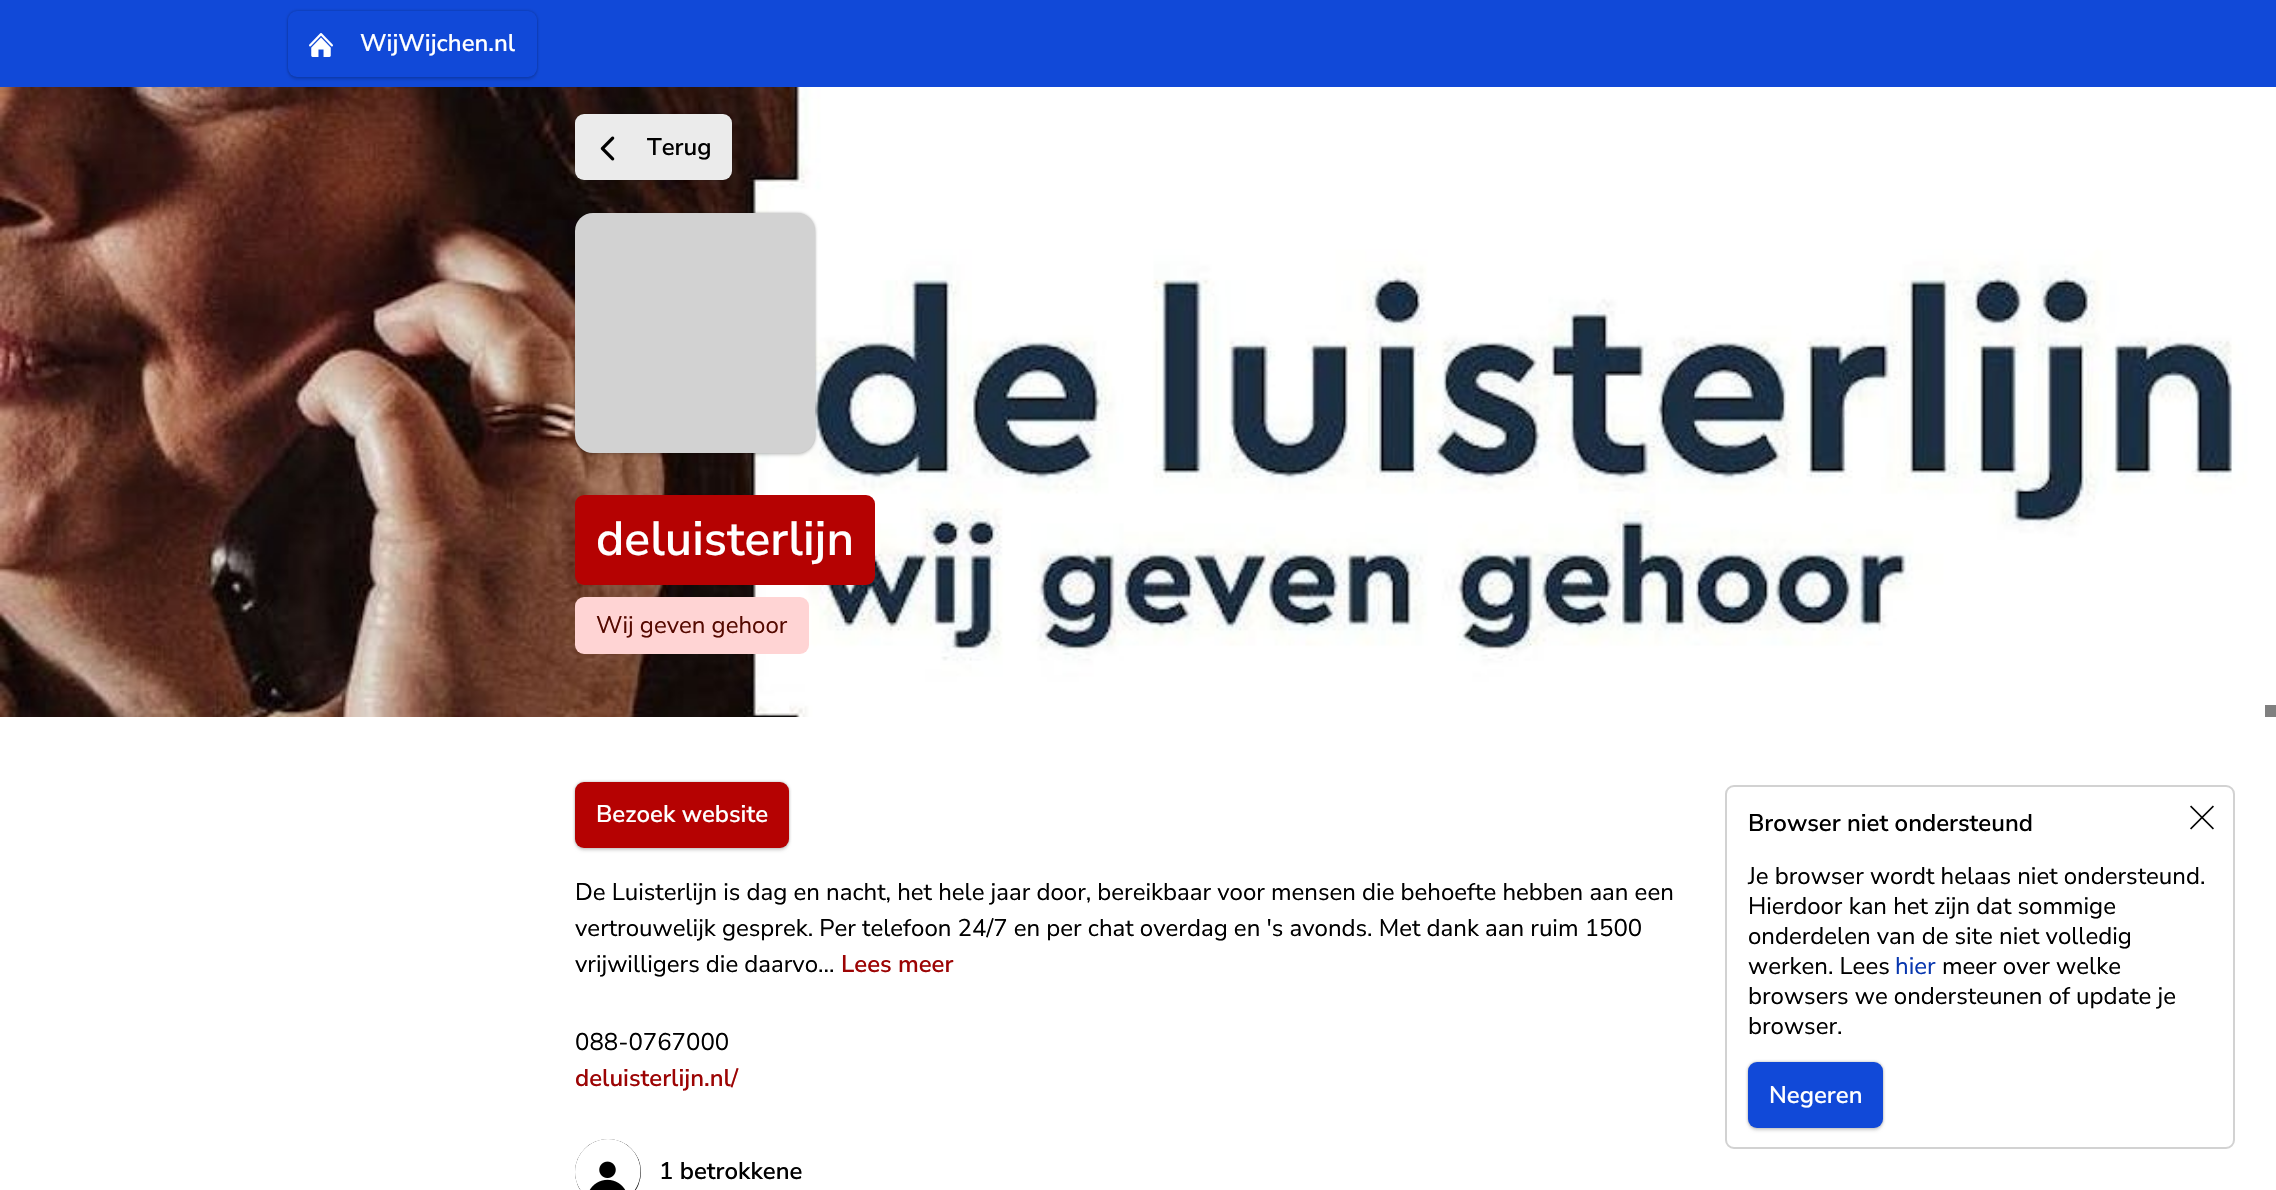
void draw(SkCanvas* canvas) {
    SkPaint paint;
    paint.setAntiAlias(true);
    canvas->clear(0xFFFFFFFF);
    paint.setColor(0xFF1149D8);
    canvas->drawRect(SkRect::MakeXYWH(0, 0, 2276, 87), paint);
    paint.setColor(0x1A000000);
    paint.setMaskFilter(SkMaskFilter::MakeBlur(kNormal_SkBlurStyle, 1.5f));
    canvas->drawRoundRect(SkRect::MakeXYWH(288, 14, 249, 66), 9, 9, paint);
    paint.setMaskFilter(nullptr);
    paint.setColor(0x4D000000);
    paint.setMaskFilter(SkMaskFilter::MakeBlur(kNormal_SkBlurStyle, 1.5f));
    canvas->drawRoundRect(SkRect::MakeXYWH(288, 11, 249, 66), 9, 9, paint);
    paint.setMaskFilter(nullptr);
    paint.setColor(0xFF1149D8);
    canvas->drawRoundRect(SkRect::MakeXYWH(288, 11, 249, 66), 9, 9, paint);
    canvas->drawImageRect(SkImages::DeferredFromEncodedData(SkData::MakeFromFileName("img1.png")), SkRect::MakeXYWH(309, 33, 24, 24), SkSamplingOptions());
    SkFont font1(fontMgr->matchFamilyStyle("Nunito Sans", SkFontStyle(600, SkFontStyle::kNormal_Width, SkFontStyle::kUpright_Slant)), 24);
    font1.setSubpixel(true);
    paint.setColor(0xFFFFFFFF);
    canvas->drawString("WijWijchen.nl", 360, 51, font1, paint);
    canvas->drawImageRect(SkImages::DeferredFromEncodedData(SkData::MakeFromFileName("img2.png")), SkRect::MakeXYWH(0, 87, 2276, 630), SkSamplingOptions());
    canvas->save();
    canvas->clipRect(SkRect::MakeXYWH(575, 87, 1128, 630));
    paint.setColor(0x4D000000);
    paint.setMaskFilter(SkMaskFilter::MakeBlur(kNormal_SkBlurStyle, 1.5f));
    canvas->drawRoundRect(SkRect::MakeXYWH(575, 114, 157, 66), 9, 9, paint);
    paint.setMaskFilter(nullptr);
    canvas->restore();
    paint.setColor(0xFFEBEBEB);
    canvas->drawRoundRect(SkRect::MakeXYWH(575, 114, 157, 66), 9, 9, paint);
    canvas->drawImageRect(SkImages::DeferredFromEncodedData(SkData::MakeFromFileName("img3.png")), SkRect::MakeXYWH(600, 136, 15, 25), SkSamplingOptions());
    paint.setColor(0xFF000000);
    canvas->drawString("Terug", 647, 155, font1, paint);
    canvas->save();
    canvas->clipPath(SkPathBuilder(SkPathFillType::kEvenOdd).moveTo(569, 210).lineTo(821, 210).lineTo(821, 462).lineTo(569, 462).close().moveTo(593, 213).lineTo(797, 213).cubicTo(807, 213, 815, 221, 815, 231).lineTo(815, 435).cubicTo(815, 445, 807, 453, 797, 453).lineTo(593, 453).cubicTo(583, 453, 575, 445, 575, 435).lineTo(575, 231).cubicTo(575, 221, 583, 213, 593, 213).close().detach(), true);
    paint.setColor(0x1A000000);
    paint.setMaskFilter(SkMaskFilter::MakeBlur(kNormal_SkBlurStyle, 1.5f));
    canvas->drawRoundRect(SkRect::MakeXYWH(575, 216, 240, 240), 18, 18, paint);
    paint.setMaskFilter(nullptr);
    canvas->restore();
    canvas->save();
    canvas->clipRect(SkRect::MakeXYWH(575, 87, 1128, 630));
    paint.setColor(0x4D000000);
    paint.setMaskFilter(SkMaskFilter::MakeBlur(kNormal_SkBlurStyle, 1.5f));
    canvas->drawRoundRect(SkRect::MakeXYWH(575, 213, 240, 240), 18, 18, paint);
    paint.setMaskFilter(nullptr);
    canvas->restore();
    paint.setColor(0xFFD2D2D2);
    canvas->drawRoundRect(SkRect::MakeXYWH(575, 213, 240, 240), 18, 18, paint);
    paint.setColor(0xFFB50202);
    canvas->drawRoundRect(SkRect::MakeXYWH(575, 495, 300, 90), 9, 9, paint);
    SkFont font2(fontMgr->matchFamilyStyle("Nunito Sans", SkFontStyle(600, SkFontStyle::kNormal_Width, SkFontStyle::kUpright_Slant)), 48);
    font2.setSubpixel(true);
    paint.setColor(0xFFFFFFFF);
    canvas->drawString("deluisterlijn", 596, 555, font2, paint);
    paint.setColor(0xFFFFD4D4);
    canvas->drawRoundRect(SkRect::MakeXYWH(575, 597, 234, 57), 9, 9, paint);
    SkFont font3(fontMgr->matchFamilyStyle("Nunito Sans", SkFontStyle::Normal()), 24);
    font3.setSubpixel(true);
    paint.setColor(0xFF550900);
    canvas->drawString("Wij geven gehoor", 596, 633, font3, paint);
    paint.setColor(0xFF808080);
    canvas->drawRect(SkRect::MakeXYWH(2265, 705, 11, 12), paint);
    paint.setColor(0x1A000000);
    paint.setMaskFilter(SkMaskFilter::MakeBlur(kNormal_SkBlurStyle, 1.5f));
    canvas->drawRoundRect(SkRect::MakeXYWH(575, 785, 214, 66), 9, 9, paint);
    paint.setMaskFilter(nullptr);
    paint.setColor(0x4D000000);
    paint.setMaskFilter(SkMaskFilter::MakeBlur(kNormal_SkBlurStyle, 1.5f));
    canvas->drawRoundRect(SkRect::MakeXYWH(575, 782, 214, 66), 9, 9, paint);
    paint.setMaskFilter(nullptr);
    paint.setColor(0xFFB50202);
    canvas->drawRoundRect(SkRect::MakeXYWH(575, 782, 214, 66), 9, 9, paint);
    paint.setColor(0xFFFFFFFF);
    canvas->drawString("Bezoek website", 596, 822, font1, paint);
    paint.setColor(0xFF000000);
    canvas->drawString("De Luisterlijn is dag en nacht, het hele jaar door, bereikbaar voor mensen die behoefte hebben aan een", 575, 900, font3, paint);
    canvas->drawString("vertrouwelijk gesprek. Per telefoon 24/7 en per chat overdag en 's avonds. Met dank aan ruim 1500", 575, 936, font3, paint);
    canvas->drawString("vrijwilligers die daarvo...", 575, 972, font3, paint);
    paint.setColor(0xFF9C0404);
    canvas->drawString("Lees meer", 841, 972, font1, paint);
    paint.setColor(0xFF000000);
    canvas->drawString("088-0767000", 575, 1050, font3, paint);
    paint.setColor(0xFF9C0404);
    canvas->drawString("deluisterlijn.nl/", 575, 1086, font1, paint);
    paint.setColor(0xFF000000);
    canvas->drawCircle(608, 1172, 33, paint);
    canvas->drawImageRect(SkImages::DeferredFromEncodedData(SkData::MakeFromFileName("img4.png")), SkRect::MakeXYWH(575, 1139, 66, 51), SkSamplingOptions());
    canvas->drawString("1 betrokkene", 659, 1179, font1, paint);
    paint.setStyle(SkPaint::kStroke_Style);
    paint.setStrokeWidth(2);
    paint.setColor(0xFFD2D2D2);
    canvas->drawRoundRect(SkRect::MakeXYWH(1726, 786, 508, 362), 8, 8, paint);
    canvas->drawImageRect(SkImages::DeferredFromEncodedData(SkData::MakeFromFileName("img5.png")), SkRect::MakeXYWH(2190, 805, 24, 25), SkSamplingOptions());
    paint.setStyle(SkPaint::kFill_Style);
    paint.setColor(0xFF000000);
    canvas->drawString("Browser niet ondersteund", 1748, 831, font1, paint);
    canvas->drawString("Je browser wordt helaas niet ondersteund.", 1748, 884, font3, paint);
    canvas->drawString("Hierdoor kan het zijn dat sommige", 1748, 914, font3, paint);
    canvas->drawString("onderdelen van de site niet volledig", 1748, 944, font3, paint);
    canvas->drawString("werken. Lees", 1748, 974, font3, paint);
    paint.setColor(0xFF0736AF);
    canvas->drawString("hier", 1895, 974, font3, paint);
    paint.setColor(0xFF000000);
    canvas->drawString("meer over welke", 1942, 974, font3, paint);
    canvas->drawString("browsers we ondersteunen of update je", 1748, 1004, font3, paint);
    canvas->drawString("browser.", 1748, 1034, font3, paint);
    paint.setColor(0x1A000000);
    paint.setMaskFilter(SkMaskFilter::MakeBlur(kNormal_SkBlurStyle, 1.5f));
    canvas->drawRoundRect(SkRect::MakeXYWH(1748, 1065, 135, 66), 9, 9, paint);
    paint.setMaskFilter(nullptr);
    paint.setColor(0x4D000000);
    paint.setMaskFilter(SkMaskFilter::MakeBlur(kNormal_SkBlurStyle, 1.5f));
    canvas->drawRoundRect(SkRect::MakeXYWH(1748, 1062, 135, 66), 9, 9, paint);
    paint.setMaskFilter(nullptr);
    paint.setColor(0xFF1149D8);
    canvas->drawRoundRect(SkRect::MakeXYWH(1748, 1062, 135, 66), 9, 9, paint);
    paint.setColor(0xFFFFFFFF);
    canvas->drawString("Negeren", 1769, 1103, font1, paint);
}
